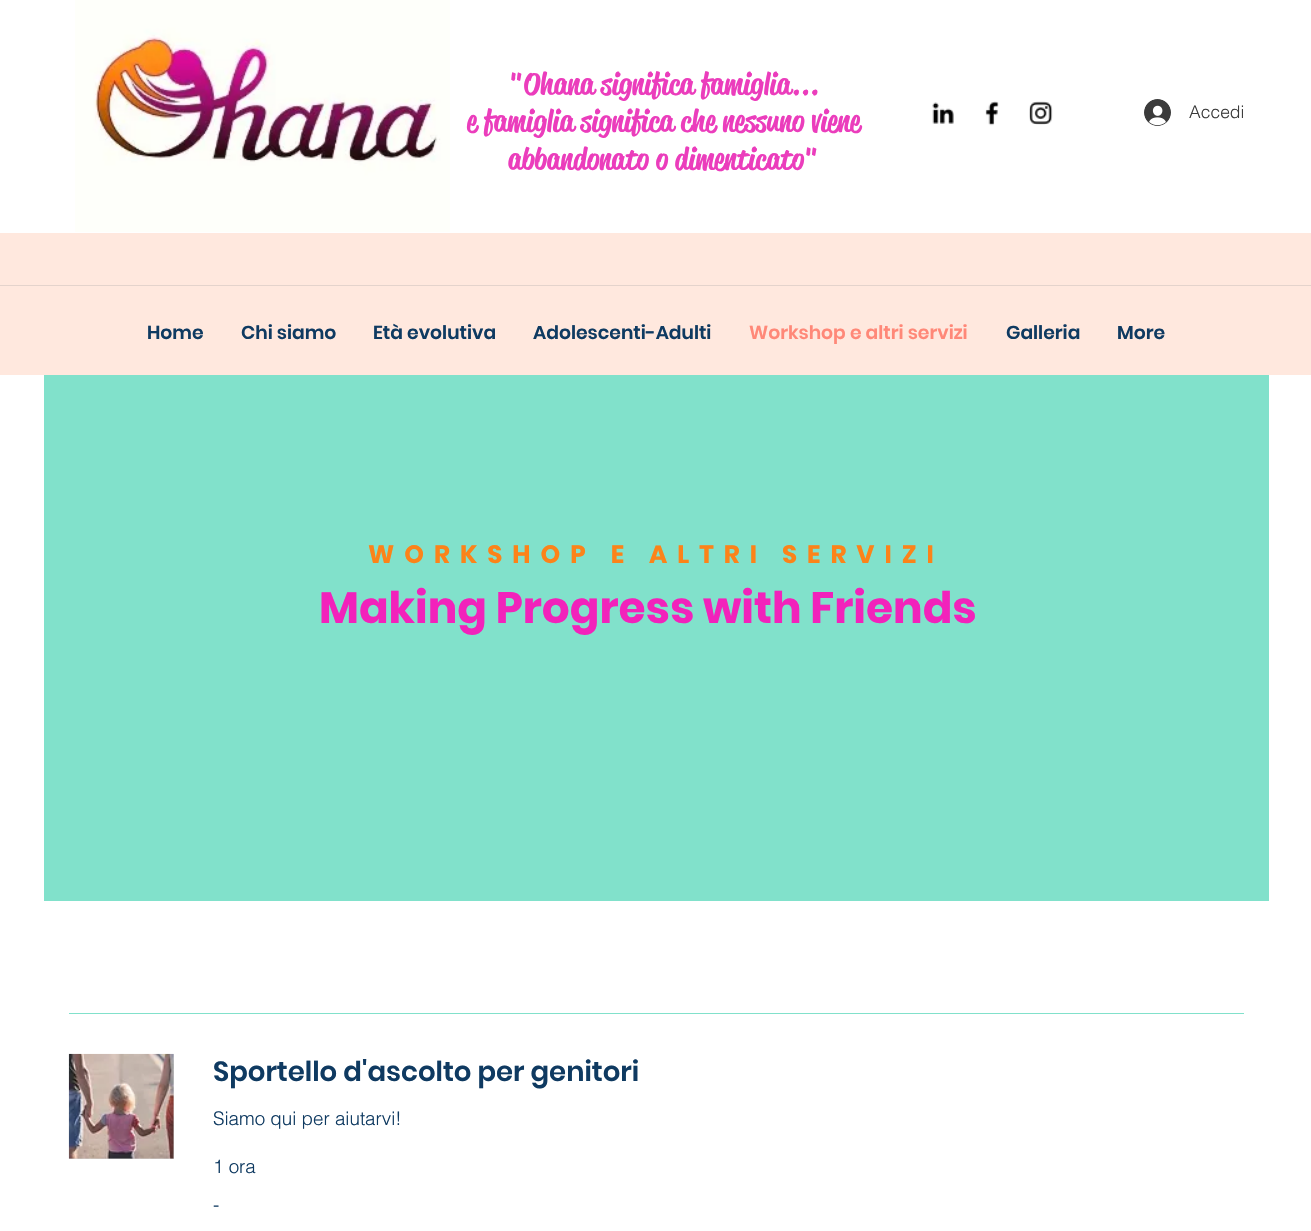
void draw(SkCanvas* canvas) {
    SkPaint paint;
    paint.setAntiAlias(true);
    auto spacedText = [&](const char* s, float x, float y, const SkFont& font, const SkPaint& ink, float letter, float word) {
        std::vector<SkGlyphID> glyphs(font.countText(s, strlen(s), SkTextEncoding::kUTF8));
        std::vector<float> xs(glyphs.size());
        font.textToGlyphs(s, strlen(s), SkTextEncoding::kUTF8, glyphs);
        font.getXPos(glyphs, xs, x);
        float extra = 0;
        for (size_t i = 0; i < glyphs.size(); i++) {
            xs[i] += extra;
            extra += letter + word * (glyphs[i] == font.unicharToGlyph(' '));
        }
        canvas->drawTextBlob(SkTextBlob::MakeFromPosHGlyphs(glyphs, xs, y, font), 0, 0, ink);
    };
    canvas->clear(0xFFFFFFFF);
    SkFont font1(fontMgr->matchFamilyStyle("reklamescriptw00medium", SkFontStyle(500, SkFontStyle::kNormal_Width, SkFontStyle::kUpright_Slant)), 30);
    font1.setSubpixel(true);
    paint.setColor(0xFFEB3DBC);
    canvas->drawString("\"Ohana significa famiglia...", 509, 94, font1, paint);
    canvas->drawString("e famiglia significa che nessuno viene", 467, 131, font1, paint);
    canvas->drawString("abbandonato o dimenticato\"", 508, 169, font1, paint);
    canvas->drawImageRect(SkImages::DeferredFromEncodedData(SkData::MakeFromFileName("img1.png")), SkRect::MakeXYWH(75, 0, 375, 232), SkSamplingOptions());
    canvas->drawImageRect(SkImages::DeferredFromEncodedData(SkData::MakeFromFileName("img2.png")), SkRect::MakeXYWH(932, 102, 22, 22), SkSamplingOptions());
    canvas->drawImageRect(SkImages::DeferredFromEncodedData(SkData::MakeFromFileName("img3.png")), SkRect::MakeXYWH(985, 101, 14, 25), SkSamplingOptions());
    canvas->drawImageRect(SkImages::DeferredFromEncodedData(SkData::MakeFromFileName("img4.png")), SkRect::MakeXYWH(1029, 101, 24, 24), SkSamplingOptions());
    canvas->drawImageRect(SkImages::DeferredFromEncodedData(SkData::MakeFromFileName("img5.png")), SkRect::MakeXYWH(1144, 99, 27, 27), SkSamplingOptions());
    SkFont font2(fontMgr->matchFamilyStyle("helvetica", SkFontStyle(300, SkFontStyle::kNormal_Width, SkFontStyle::kUpright_Slant)), 17.5f);
    font2.setSubpixel(true);
    paint.setColor(0xFF3B3B3B);
    canvas->drawString("Accedi", 1189, 118, font2, paint);
    paint.setColor(0xFFFFE8DE);
    canvas->drawRect(SkRect::MakeXYWH(0, 233, 1311, 142), paint);
    paint.setColor(0xFFE4D3CC);
    canvas->drawRect(SkRect::MakeXYWH(0, 285, 1311, 1), paint);
    SkFont font3(fontMgr->matchFamilyStyle("Poppins", SkFontStyle(600, SkFontStyle::kNormal_Width, SkFontStyle::kUpright_Slant)), 18.75f);
    font3.setSubpixel(true);
    paint.setColor(0xFF0F3A61);
    canvas->drawString("Home", 147, 339, font3, paint);
    canvas->drawString("Chi siamo", 241, 339, font3, paint);
    canvas->drawString("Età evolutiva", 373, 339, font3, paint);
    canvas->drawString("Adolescenti-Adulti", 533, 339, font3, paint);
    paint.setColor(0xFFFF8878);
    canvas->drawString("Workshop e altri servizi", 749, 339, font3, paint);
    paint.setColor(0xFF0F3A61);
    canvas->drawString("Galleria", 1006, 339, font3, paint);
    canvas->drawString("More", 1117, 339, font3, paint);
    paint.setColor(0xFF81E1CB);
    canvas->drawRect(SkRect::MakeXYWH(44, 375, 1225, 526), paint);
    SkFont font4(fontMgr->matchFamilyStyle("Poppins", SkFontStyle::Bold()), 25);
    font4.setSubpixel(true);
    paint.setColor(0xFFFC8319);
    spacedText("WORKSHOP E ALTRI SERVIZI", 368, 563, font4, paint, 10, 0);
    SkFont font5(fontMgr->matchFamilyStyle("Poppins", SkFontStyle::Bold()), 43.75f);
    font5.setSubpixel(true);
    paint.setColor(0xFFF222BB);
    canvas->drawString("Making Progress with Friends", 319, 623, font5, paint);
    paint.setColor(0xFF81E1CB);
    canvas->drawRect(SkRect::MakeXYWH(69, 1013, 1175, 1), paint);
    paint.setColor(0xFFD8D8D8);
    canvas->drawRect(SkRect::MakeXYWH(69, 1054, 105, 105), paint);
    canvas->drawImageRect(SkImages::DeferredFromEncodedData(SkData::MakeFromFileName("img6.png")), SkRect::MakeXYWH(68, 1053, 106, 106), SkSamplingOptions());
    SkFont font6(fontMgr->matchFamilyStyle("Poppins", SkFontStyle(600, SkFontStyle::kNormal_Width, SkFontStyle::kUpright_Slant)), 27.5f);
    font6.setSubpixel(true);
    paint.setColor(0xFF0F3A61);
    canvas->drawString("Sportello d'ascolto per genitori", 213, 1081, font6, paint);
    SkFont font7(fontMgr->matchFamilyStyle("helvetica", SkFontStyle(300, SkFontStyle::kNormal_Width, SkFontStyle::kUpright_Slant)), 18.75f);
    font7.setSubpixel(true);
    canvas->drawString("Siamo qui per aiutarvi!", 213, 1125, font7, paint);
    canvas->drawString("1 ora", 213, 1173, font7, paint);
    canvas->drawString("-", 213, 1211, font7, paint);
}
